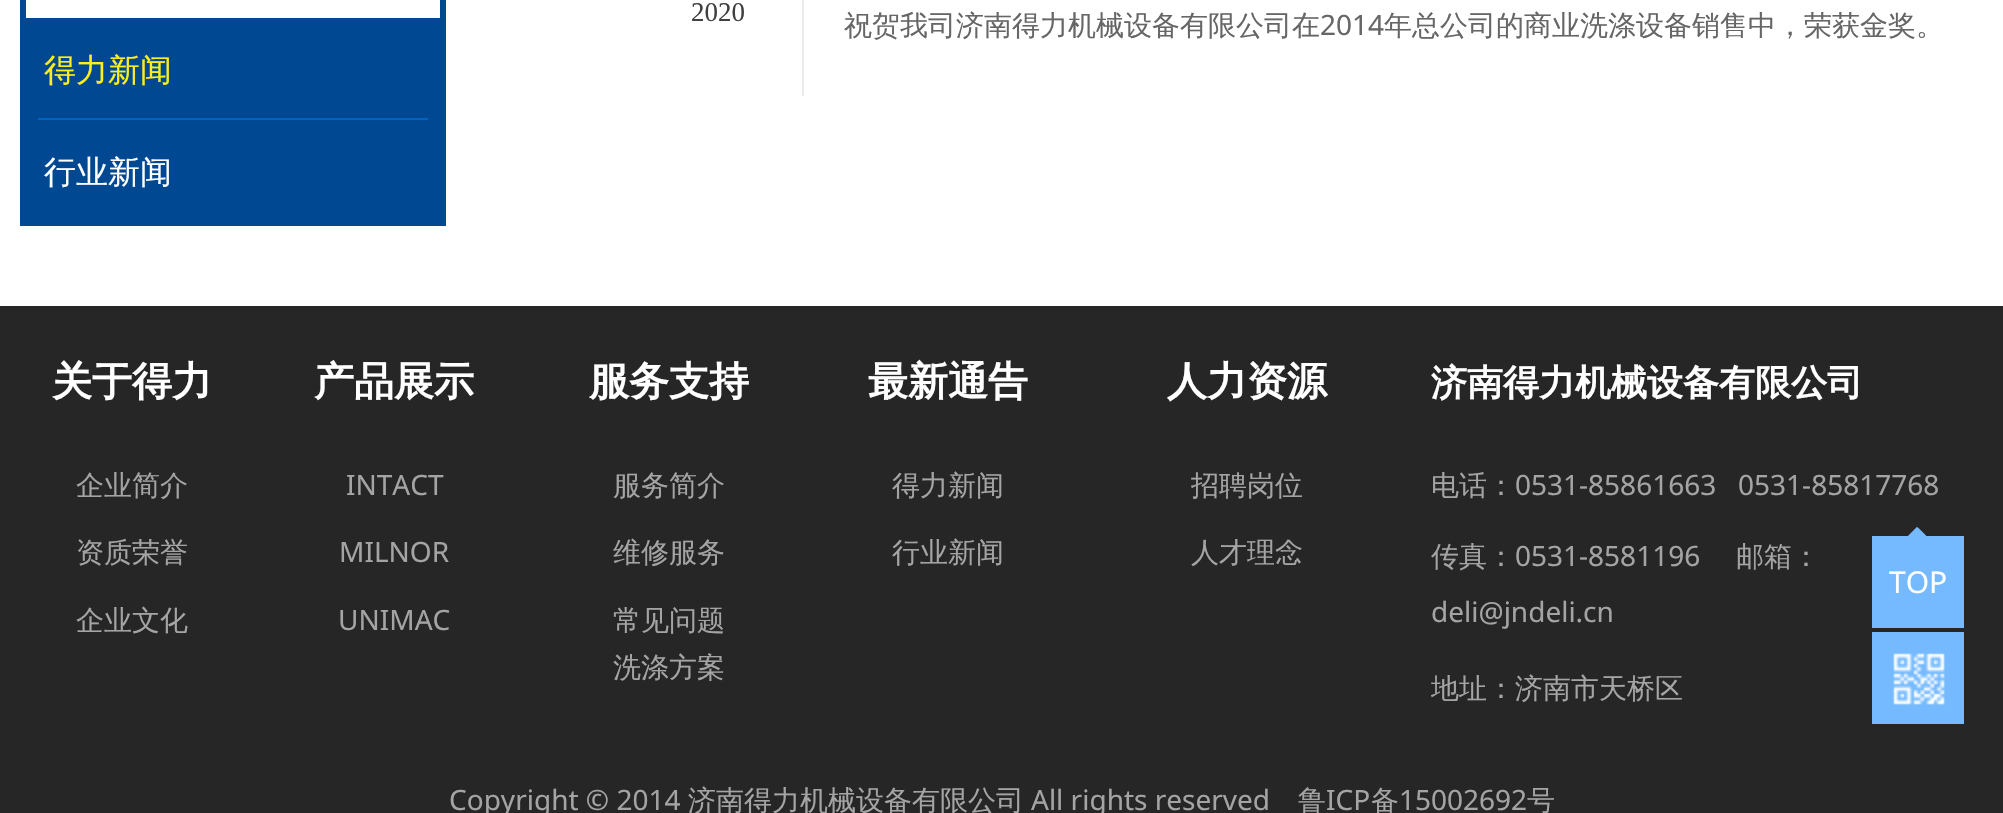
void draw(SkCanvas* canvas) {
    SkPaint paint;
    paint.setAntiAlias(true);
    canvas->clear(0xFFFFFFFF);
    paint.setColor(0xFFEBEBEB);
    canvas->drawRect(SkRect::MakeXYWH(802, 0, 2, 96), paint);
    SkFont font1(fontMgr->matchFamilyStyle("Liberation Serif", SkFontStyle::Normal()), 27);
    font1.setSubpixel(true);
    paint.setColor(0xFF404040);
    canvas->drawString("2020", 691, 21, font1, paint);
    SkFont font2(fontMgr->matchFamilyStyle("WenQuanYi Zen Hei", SkFontStyle(500, SkFontStyle::kNormal_Width, SkFontStyle::kUpright_Slant)), 28);
    font2.setSubpixel(true);
    paint.setColor(0xFF666666);
    canvas->drawString("祝贺我司济南得力机械设备有限公司在", 844, 35, font2, paint);
    SkFont font3(fontMgr->matchFamilyStyle("Noto Sans", SkFontStyle::Normal()), 28);
    font3.setSubpixel(true);
    canvas->drawString("2014", 1320, 35, font3, paint);
    canvas->drawString("年总公司的商业洗涤设备销售中，荣获金奖。", 1384, 35, font2, paint);
    paint.setStyle(SkPaint::kStroke_Style);
    paint.setStrokeWidth(6);
    paint.setColor(0xFF004891);
    canvas->drawRect(SkRect::MakeXYWH(23, -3, 420, 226), paint);
    paint.setStyle(SkPaint::kFill_Style);
    canvas->drawRect(SkRect::MakeXYWH(26, 18, 414, 202), paint);
    paint.setColor(0xFF0063C6);
    canvas->drawRect(SkRect::MakeXYWH(38, 118, 390, 2), paint);
    SkFont font4(fontMgr->matchFamilyStyle("WenQuanYi Zen Hei", SkFontStyle(500, SkFontStyle::kNormal_Width, SkFontStyle::kUpright_Slant)), 32);
    font4.setSubpixel(true);
    paint.setColor(0xFFFEED21);
    canvas->drawString("得力新闻", 44, 81, font4, paint);
    paint.setColor(0xFFFFFFFF);
    canvas->drawString("行业新闻", 44, 183, font4, paint);
    paint.setColor(0xFF262626);
    canvas->drawRect(SkRect::MakeXYWH(0, 306, 2003, 507), paint);
    SkFont font5(fontMgr->matchFamilyStyle("WenQuanYi Zen Hei", SkFontStyle::Bold()), 40);
    font5.setSubpixel(true);
    paint.setColor(0xFFFFFFFF);
    canvas->drawString("关于得力", 52, 395, font5, paint);
    paint.setColor(0xFFA4A4A4);
    canvas->drawString("企业简介", 76, 495, font2, paint);
    canvas->drawString("资质荣誉", 76, 562, font2, paint);
    canvas->drawString("企业文化", 76, 630, font2, paint);
    paint.setColor(0xFFFFFFFF);
    canvas->drawString("产品展示", 314, 395, font5, paint);
    paint.setColor(0xFFA4A4A4);
    canvas->drawString("INTACT", 346, 495, font3, paint);
    canvas->drawString("MILNOR", 339, 562, font3, paint);
    canvas->drawString("UNIMAC", 338, 630, font3, paint);
    paint.setColor(0xFFFFFFFF);
    canvas->drawString("服务支持", 589, 395, font5, paint);
    paint.setColor(0xFFA4A4A4);
    canvas->drawString("服务简介", 613, 495, font2, paint);
    canvas->drawString("维修服务", 613, 562, font2, paint);
    canvas->drawString("常见问题", 613, 630, font2, paint);
    canvas->drawString("洗涤方案", 613, 677, font2, paint);
    paint.setColor(0xFFFFFFFF);
    canvas->drawString("最新通告", 868, 395, font5, paint);
    paint.setColor(0xFFA4A4A4);
    canvas->drawString("得力新闻", 892, 495, font2, paint);
    canvas->drawString("行业新闻", 892, 562, font2, paint);
    paint.setColor(0xFFFFFFFF);
    canvas->drawString("人力资源", 1167, 395, font5, paint);
    paint.setColor(0xFFA4A4A4);
    canvas->drawString("招聘岗位", 1191, 495, font2, paint);
    canvas->drawString("人才理念", 1191, 562, font2, paint);
    SkFont font6(fontMgr->matchFamilyStyle("WenQuanYi Zen Hei", SkFontStyle::Bold()), 36);
    font6.setSubpixel(true);
    paint.setColor(0xFFFFFFFF);
    canvas->drawString("济南得力机械设备有限公司", 1431, 395, font6, paint);
    paint.setColor(0xFFA4A4A4);
    canvas->drawString("电话：", 1431, 495, font2, paint);
    canvas->drawString("0531-85861663   0531-85817768", 1515, 495, font3, paint);
    canvas->drawString("传真：", 1431, 566, font2, paint);
    canvas->drawString("0531-8581196", 1515, 566, font3, paint);
    canvas->drawString("邮箱：", 1736, 566, font2, paint);
    canvas->drawString("deli@jndeli.cn", 1431, 622, font3, paint);
    canvas->drawString("地址：济南市天桥区", 1431, 698, font2, paint);
    canvas->drawString("Copyright © 2014", 449, 810, font3, paint);
    canvas->drawString("济南得力机械设备有限公司", 688, 810, font2, paint);
    canvas->drawString("All rights reserved", 1031, 810, font3, paint);
    canvas->drawString("鲁", 1298, 810, font2, paint);
    canvas->drawString("ICP", 1326, 810, font3, paint);
    canvas->drawString("备", 1371, 810, font2, paint);
    canvas->drawString("15002692", 1399, 810, font3, paint);
    canvas->drawString("号", 1527, 810, font2, paint);
    paint.setColor(0xFF75BAFF);
    canvas->drawRect(SkRect::MakeXYWH(1872, 536, 92, 92), paint);
    canvas->drawImageRect(SkImages::DeferredFromEncodedData(SkData::MakeFromFileName("img1.png")), SkRect::MakeXYWH(1908, 527, 19, 9), SkSamplingOptions());
    SkFont font7(fontMgr->matchFamilyStyle("Noto Sans", SkFontStyle::Normal()), 30);
    font7.setSubpixel(true);
    paint.setColor(0xFFFFFFFF);
    canvas->drawString("TOP", 1889, 593, font7, paint);
    paint.setColor(0xFF75BAFF);
    canvas->drawRect(SkRect::MakeXYWH(1872, 632, 92, 92), paint);
    canvas->drawImageRect(SkImages::DeferredFromEncodedData(SkData::MakeFromFileName("img2.png")), SkRect::MakeXYWH(1893, 653, 52, 52), SkSamplingOptions());
}
